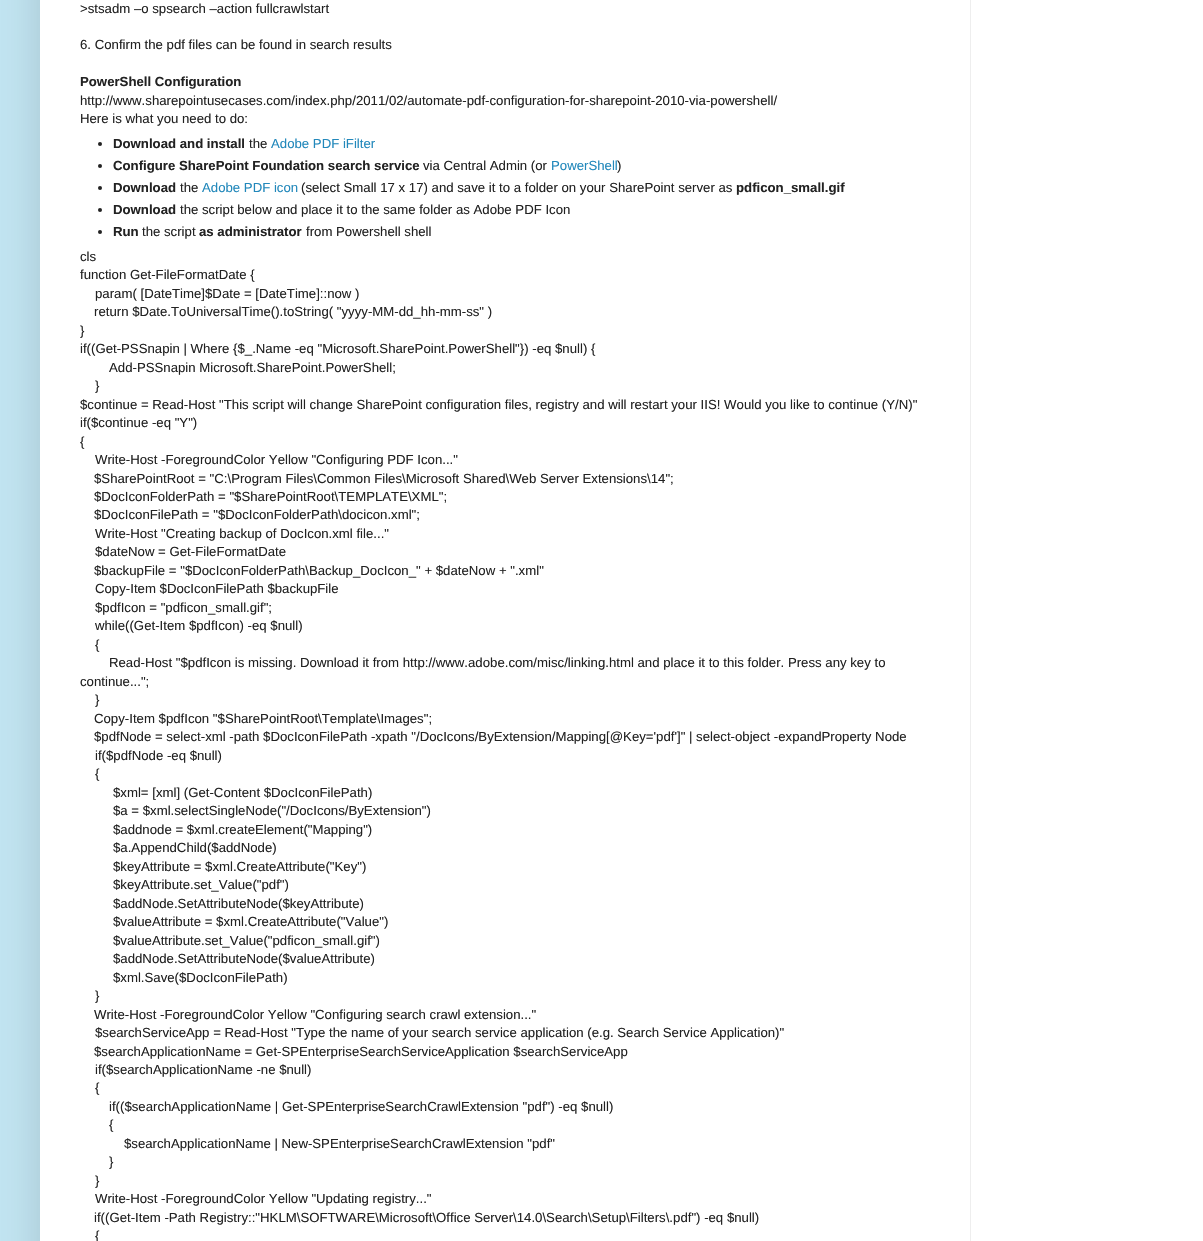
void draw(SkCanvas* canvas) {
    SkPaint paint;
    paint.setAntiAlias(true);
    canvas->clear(0xFFC2E5F2);
    paint.setColor(0x26000000);
    paint.setMaskFilter(SkMaskFilter::MakeBlur(kNormal_SkBlurStyle, 20));
    canvas->drawRect(SkRect::MakeXYWH(40, -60, 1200, 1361), paint);
    paint.setMaskFilter(nullptr);
    paint.setColor(0xFFFFFFFF);
    canvas->drawRect(SkRect::MakeXYWH(40, 0, 1163, 1241), paint);
    SkFont font1(fontMgr->matchFamilyStyle("Liberation Sans", SkFontStyle::Normal()), 13.2f);
    font1.setSubpixel(true);
    paint.setColor(0xFF222222);
    canvas->drawString(">stsadm –o spsearch –action fullcrawlstart", 80, 13, font1, paint);
    canvas->drawString("6. Confirm the pdf files can be found in search results", 80, 49, font1, paint);
    SkFont font2(fontMgr->matchFamilyStyle("Liberation Sans", SkFontStyle::Bold()), 13.2f);
    font2.setSubpixel(true);
    canvas->drawString("PowerShell Configuration", 80, 86, font2, paint);
    canvas->drawString("http://www.sharepointusecases.com/index.php/2011/02/automate-pdf-configuration-for-sharepoint-2010-via-powershell/", 80, 105, font1, paint);
    canvas->drawString("Here is what you need to do:", 80, 123, font1, paint);
    canvas->drawCircle(100, 144, 2, paint);
    canvas->drawString("Download and install", 113, 148, font2, paint);
    canvas->drawString("the", 249, 148, font1, paint);
    paint.setColor(0xFF2288BB);
    canvas->drawString("Adobe PDF iFilter", 271, 148, font1, paint);
    paint.setColor(0xFF222222);
    canvas->drawCircle(100, 166, 2, paint);
    canvas->drawString("Configure SharePoint Foundation search service", 113, 170, font2, paint);
    canvas->drawString("via Central Admin (or", 423, 170, font1, paint);
    paint.setColor(0xFF2288BB);
    canvas->drawString("PowerShell", 551, 170, font1, paint);
    paint.setColor(0xFF222222);
    canvas->drawString(")", 617, 170, font1, paint);
    canvas->drawCircle(100, 188, 2, paint);
    canvas->drawString("Download", 113, 192, font2, paint);
    canvas->drawString("the", 180, 192, font1, paint);
    paint.setColor(0xFF2288BB);
    canvas->drawString("Adobe PDF icon", 202, 192, font1, paint);
    paint.setColor(0xFF222222);
    canvas->drawString("(select Small 17 x 17) and save it to a folder on your SharePoint server as", 301, 192, font1, paint);
    canvas->drawString("pdficon_small.gif", 736, 192, font2, paint);
    canvas->drawCircle(100, 210, 2, paint);
    canvas->drawString("Download", 113, 214, font2, paint);
    canvas->drawString("the script below and place it to the same folder as Adobe PDF Icon", 180, 214, font1, paint);
    canvas->drawCircle(100, 232, 2, paint);
    canvas->drawString("Run", 113, 236, font2, paint);
    canvas->drawString("the script", 142, 236, font1, paint);
    canvas->drawString("as administrator", 199, 236, font2, paint);
    canvas->drawString("from Powershell shell", 306, 236, font1, paint);
    canvas->drawString("cls", 80, 261, font1, paint);
    canvas->drawString("function Get-FileFormatDate {", 80, 279, font1, paint);
    canvas->drawString("param( [DateTime]$Date = [DateTime]::now )", 95, 298, font1, paint);
    canvas->drawString("return $Date.ToUniversalTime().toString( \"yyyy-MM-dd_hh-mm-ss\" )", 94, 316, font1, paint);
    canvas->drawString("}", 80, 335, font1, paint);
    canvas->drawString("if((Get-PSSnapin | Where {$_.Name -eq \"Microsoft.SharePoint.PowerShell\"}) -eq $null) {", 80, 353, font1, paint);
    canvas->drawString("Add-PSSnapin Microsoft.SharePoint.PowerShell;", 109, 372, font1, paint);
    canvas->drawString("}", 95, 390, font1, paint);
    canvas->drawString("$continue = Read-Host \"This script will change SharePoint configuration files, registry and will restart your IIS! Would you like to continue (Y/N)\"", 80, 409, font1, paint);
    canvas->drawString("if($continue -eq \"Y\")", 80, 427, font1, paint);
    canvas->drawString("{", 80, 446, font1, paint);
    canvas->drawString("Write-Host -ForegroundColor Yellow \"Configuring PDF Icon...\"", 95, 464, font1, paint);
    canvas->drawString("$SharePointRoot = \"C:\\Program Files\\Common Files\\Microsoft Shared\\Web Server Extensions\\14\";", 94, 483, font1, paint);
    canvas->drawString("$DocIconFolderPath = \"$SharePointRoot\\TEMPLATE\\XML\";", 94, 501, font1, paint);
    canvas->drawString("$DocIconFilePath = \"$DocIconFolderPath\\docicon.xml\";", 94, 519, font1, paint);
    canvas->drawString("Write-Host \"Creating backup of DocIcon.xml file...\"", 95, 538, font1, paint);
    canvas->drawString("$dateNow = Get-FileFormatDate", 95, 556, font1, paint);
    canvas->drawString("$backupFile = \"$DocIconFolderPath\\Backup_DocIcon_\" + $dateNow + \".xml\"", 94, 575, font1, paint);
    canvas->drawString("Copy-Item $DocIconFilePath $backupFile", 95, 593, font1, paint);
    canvas->drawString("$pdfIcon = \"pdficon_small.gif\";", 95, 612, font1, paint);
    canvas->drawString("while((Get-Item $pdfIcon) -eq $null)", 95, 630, font1, paint);
    canvas->drawString("{", 95, 649, font1, paint);
    canvas->drawString("Read-Host \"$pdfIcon is missing. Download it from http://www.adobe.com/misc/linking.html and place it to this folder. Press any key to", 109, 667, font1, paint);
    canvas->drawString("continue...\";", 80, 686, font1, paint);
    canvas->drawString("}", 95, 704, font1, paint);
    canvas->drawString("Copy-Item $pdfIcon \"$SharePointRoot\\Template\\Images\";", 94, 723, font1, paint);
    canvas->drawString("$pdfNode = select-xml -path $DocIconFilePath -xpath \"/DocIcons/ByExtension/Mapping[@Key='pdf']\" | select-object -expandProperty Node", 94, 741, font1, paint);
    canvas->drawString("if($pdfNode -eq $null)", 95, 760, font1, paint);
    canvas->drawString("{", 95, 778, font1, paint);
    canvas->drawString("$xml= [xml] (Get-Content $DocIconFilePath)", 113, 797, font1, paint);
    canvas->drawString("$a = $xml.selectSingleNode(\"/DocIcons/ByExtension\")", 113, 815, font1, paint);
    canvas->drawString("$addnode = $xml.createElement(\"Mapping\")", 113, 834, font1, paint);
    canvas->drawString("$a.AppendChild($addNode)", 113, 852, font1, paint);
    canvas->drawString("$keyAttribute = $xml.CreateAttribute(\"Key\")", 113, 871, font1, paint);
    canvas->drawString("$keyAttribute.set_Value(\"pdf\")", 113, 889, font1, paint);
    canvas->drawString("$addNode.SetAttributeNode($keyAttribute)", 113, 908, font1, paint);
    canvas->drawString("$valueAttribute = $xml.CreateAttribute(\"Value\")", 113, 926, font1, paint);
    canvas->drawString("$valueAttribute.set_Value(\"pdficon_small.gif\")", 113, 945, font1, paint);
    canvas->drawString("$addNode.SetAttributeNode($valueAttribute)", 113, 963, font1, paint);
    canvas->drawString("$xml.Save($DocIconFilePath)", 113, 982, font1, paint);
    canvas->drawString("}", 95, 1000, font1, paint);
    canvas->drawString("Write-Host -ForegroundColor Yellow \"Configuring search crawl extension...\"", 94, 1019, font1, paint);
    canvas->drawString("$searchServiceApp = Read-Host \"Type the name of your search service application (e.g. Search Service Application)\"", 95, 1037, font1, paint);
    canvas->drawString("$searchApplicationName = Get-SPEnterpriseSearchServiceApplication $searchServiceApp", 94, 1056, font1, paint);
    canvas->drawString("if($searchApplicationName -ne $null)", 95, 1074, font1, paint);
    canvas->drawString("{", 95, 1092, font1, paint);
    canvas->drawString("if(($searchApplicationName | Get-SPEnterpriseSearchCrawlExtension \"pdf\") -eq $null)", 109, 1111, font1, paint);
    canvas->drawString("{", 109, 1129, font1, paint);
    canvas->drawString("$searchApplicationName | New-SPEnterpriseSearchCrawlExtension \"pdf\"", 124, 1148, font1, paint);
    canvas->drawString("}", 109, 1166, font1, paint);
    canvas->drawString("}", 95, 1185, font1, paint);
    canvas->drawString("Write-Host -ForegroundColor Yellow \"Updating registry...\"", 95, 1203, font1, paint);
    canvas->drawString("if((Get-Item -Path Registry::\"HKLM\\SOFTWARE\\Microsoft\\Office Server\\14.0\\Search\\Setup\\Filters\\.pdf\") -eq $null)", 94, 1222, font1, paint);
    canvas->drawString("{", 95, 1240, font1, paint);
    paint.setColor(0xFFEEEEEE);
    canvas->drawRect(SkRect::MakeXYWH(970, 0, 1, 1241), paint);
}
